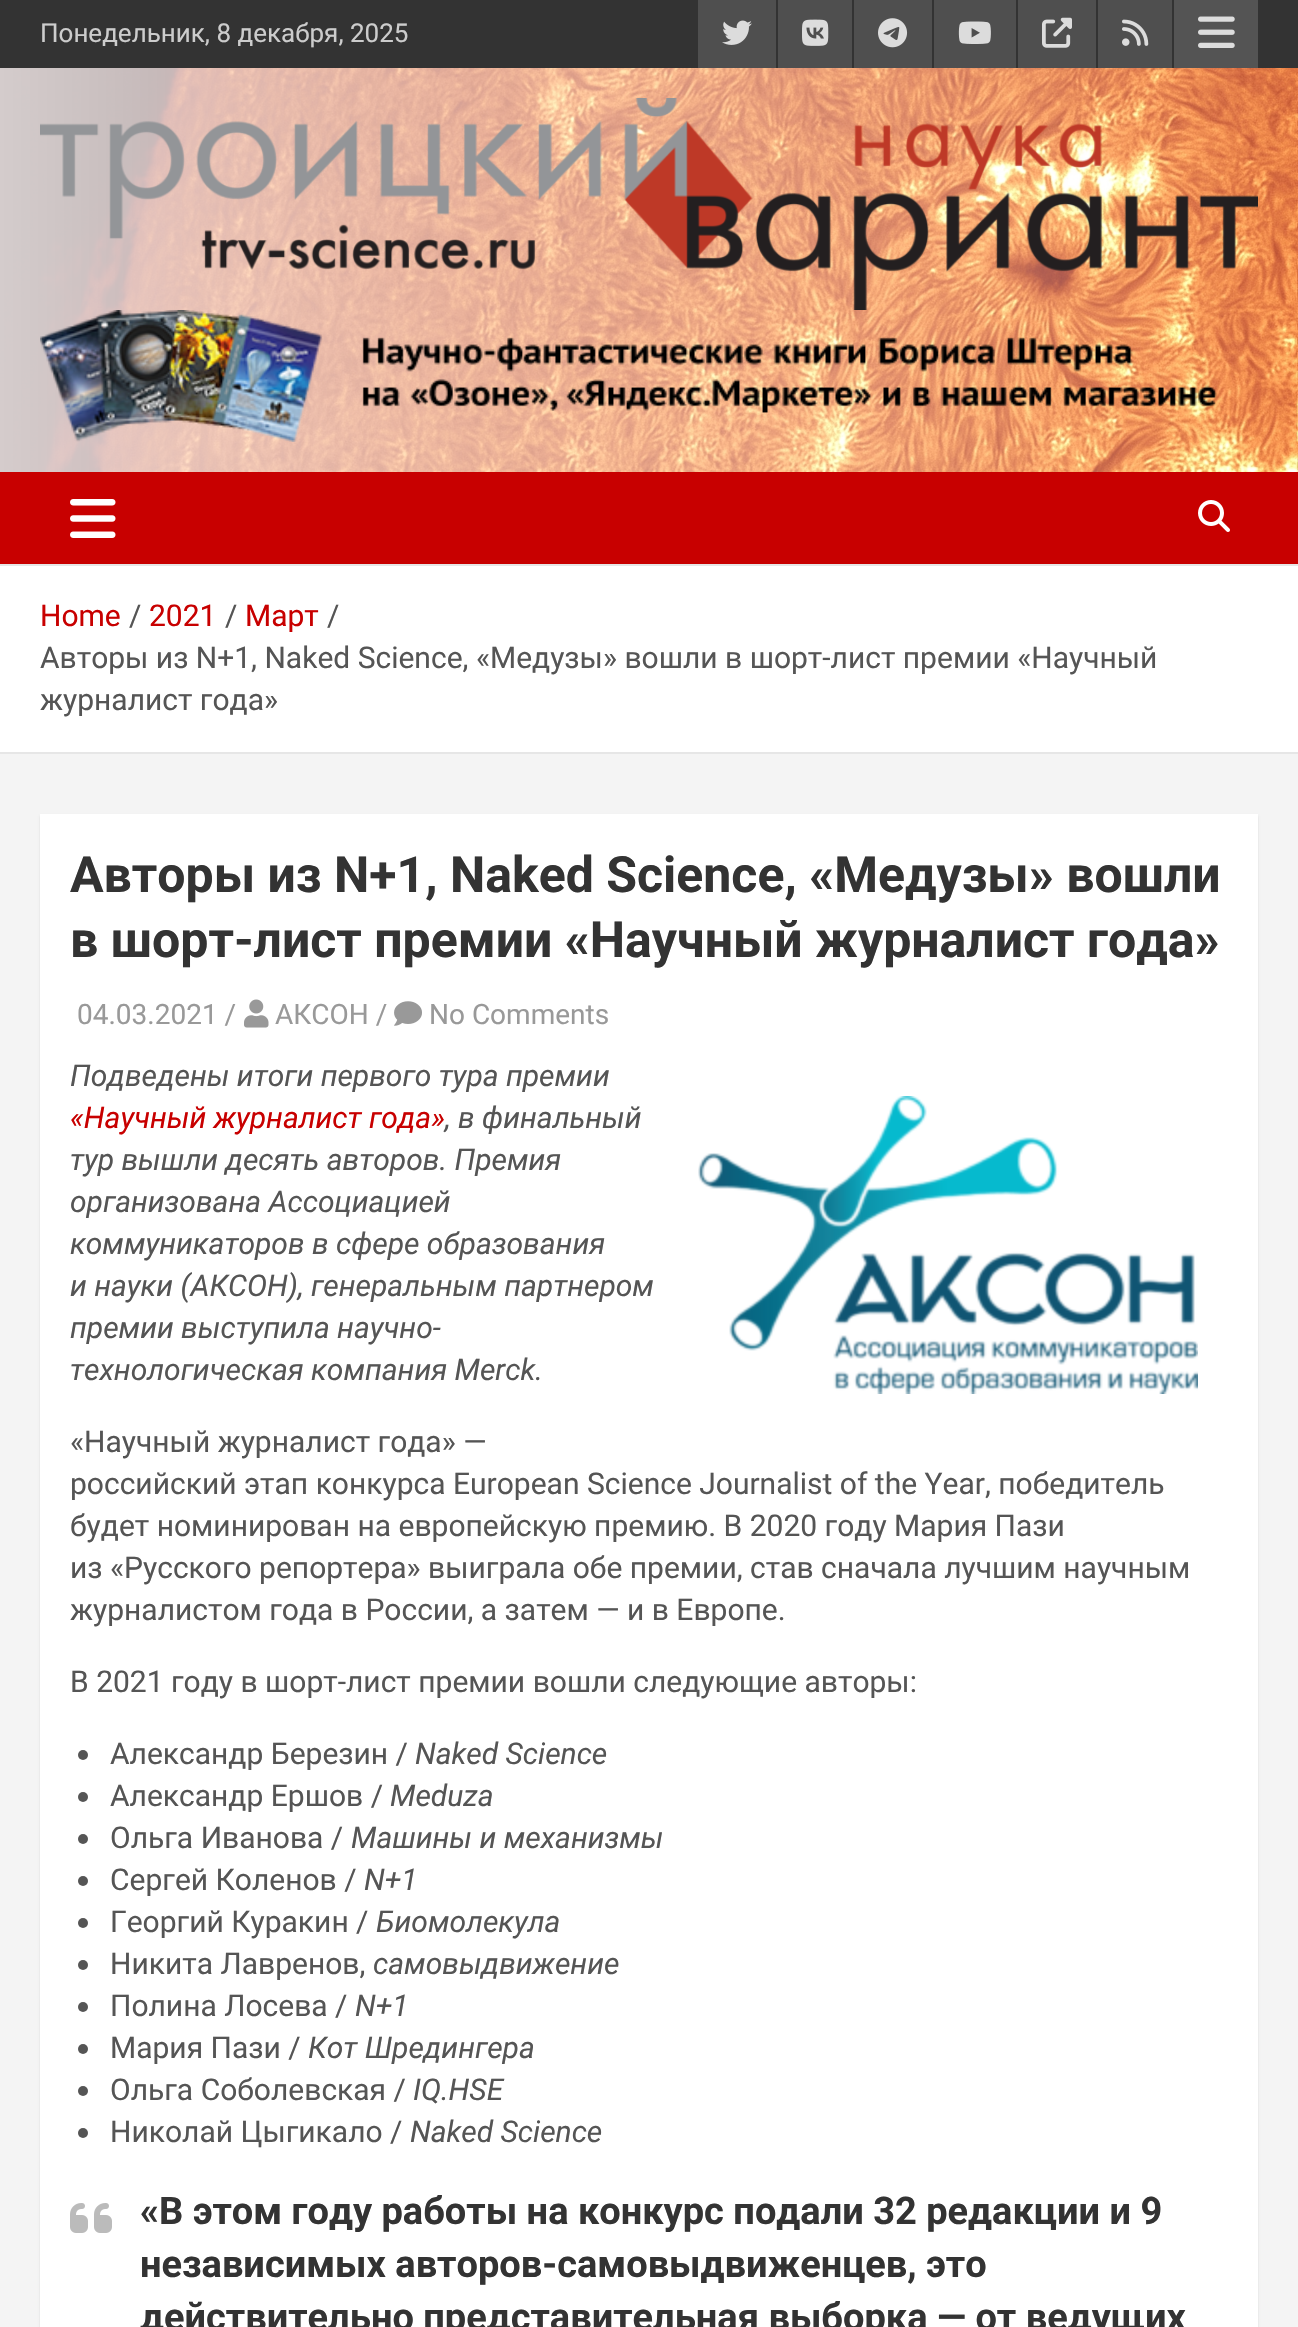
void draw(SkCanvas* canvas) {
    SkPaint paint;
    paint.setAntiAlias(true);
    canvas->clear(0xFFF4F4F4);
    paint.setColor(0xFF333333);
    canvas->drawRect(SkRect::MakeXYWH(0, 0, 1298, 68), paint);
    SkFont font1(fontMgr->matchFamilyStyle("Roboto", SkFontStyle::Normal()), 26);
    font1.setSubpixel(true);
    paint.setColor(0xFFCCCCCC);
    canvas->drawString("Понедельник, 8 декабря, 2025", 40, 42, font1, paint);
    paint.setColor(0xFF4F4F4F);
    canvas->drawRect(SkRect::MakeXYWH(698, 0, 78, 68), paint);
    canvas->drawImageRect(SkImages::DeferredFromEncodedData(SkData::MakeFromFileName("img1.png")), SkRect::MakeXYWH(722, 20, 30, 25), SkSamplingOptions());
    canvas->drawRect(SkRect::MakeXYWH(778, 0, 74, 68), paint);
    canvas->drawImageRect(SkImages::DeferredFromEncodedData(SkData::MakeFromFileName("img2.png")), SkRect::MakeXYWH(802, 19, 27, 27), SkSamplingOptions());
    canvas->drawRect(SkRect::MakeXYWH(854, 0, 78, 68), paint);
    canvas->drawImageRect(SkImages::DeferredFromEncodedData(SkData::MakeFromFileName("img3.png")), SkRect::MakeXYWH(878, 18, 30, 30), SkSamplingOptions());
    canvas->drawRect(SkRect::MakeXYWH(934, 0, 82, 68), paint);
    canvas->drawImageRect(SkImages::DeferredFromEncodedData(SkData::MakeFromFileName("img4.png")), SkRect::MakeXYWH(958, 21, 33, 23), SkSamplingOptions());
    canvas->drawRect(SkRect::MakeXYWH(1018, 0, 78, 68), paint);
    canvas->drawImageRect(SkImages::DeferredFromEncodedData(SkData::MakeFromFileName("img5.png")), SkRect::MakeXYWH(1042, 17, 30, 31), SkSamplingOptions());
    canvas->drawRect(SkRect::MakeXYWH(1098, 0, 74, 68), paint);
    canvas->drawImageRect(SkImages::DeferredFromEncodedData(SkData::MakeFromFileName("img6.png")), SkRect::MakeXYWH(1122, 19, 27, 27), SkSamplingOptions());
    paint.setColor(0xFF545454);
    canvas->drawRect(SkRect::MakeXYWH(1174, 0, 84, 68), paint);
    canvas->drawImageRect(SkImages::DeferredFromEncodedData(SkData::MakeFromFileName("img7.png")), SkRect::MakeXYWH(1198, 16, 37, 32), SkSamplingOptions());
    canvas->drawImageRect(SkImages::DeferredFromEncodedData(SkData::MakeFromFileName("img8.png")), SkRect::MakeXYWH(0, 68, 1298, 404), SkSamplingOptions());
    canvas->drawImageRect(SkImages::DeferredFromEncodedData(SkData::MakeFromFileName("img9.png")), SkRect::MakeXYWH(40, 98, 1218, 212), SkSamplingOptions());
    canvas->drawImageRect(SkImages::DeferredFromEncodedData(SkData::MakeFromFileName("img10.png")), SkRect::MakeXYWH(40, 310, 1177, 132), SkSamplingOptions());
    paint.setColor(0xFFC80000);
    canvas->drawRect(SkRect::MakeXYWH(0, 472, 1298, 92), paint);
    canvas->drawImageRect(SkImages::DeferredFromEncodedData(SkData::MakeFromFileName("img11.png")), SkRect::MakeXYWH(70, 499, 46, 39), SkSamplingOptions());
    canvas->drawImageRect(SkImages::DeferredFromEncodedData(SkData::MakeFromFileName("img12.png")), SkRect::MakeXYWH(1198, 500, 32, 32), SkSamplingOptions());
    paint.setColor(0xFFE6E6E6);
    canvas->drawRect(SkRect::MakeXYWH(0, 564, 1298, 2), paint);
    paint.setColor(0xFFFFFFFF);
    canvas->drawRect(SkRect::MakeXYWH(0, 566, 1298, 186), paint);
    paint.setColor(0xFFE6E6E6);
    canvas->drawRect(SkRect::MakeXYWH(0, 752, 1298, 2), paint);
    SkFont font2(fontMgr->matchFamilyStyle("Roboto", SkFontStyle::Normal()), 30);
    font2.setSubpixel(true);
    paint.setColor(0xFFC80000);
    canvas->drawString("Home", 40, 626, font2, paint);
    paint.setColor(0xFF555555);
    canvas->drawString("/", 129, 626, font2, paint);
    paint.setColor(0xFFC80000);
    canvas->drawString("2021", 149, 626, font2, paint);
    paint.setColor(0xFF555555);
    canvas->drawString("/", 225, 626, font2, paint);
    paint.setColor(0xFFC80000);
    canvas->drawString("Март", 245, 626, font2, paint);
    paint.setColor(0xFF555555);
    canvas->drawString("/", 327, 626, font2, paint);
    canvas->drawString("Авторы из N+1, Naked Science, «Медузы» вошли в шорт-лист премии «Научный", 40, 668, font2, paint);
    canvas->drawString("журналист года»", 40, 710, font2, paint);
    paint.setColor(0x1A000000);
    paint.setMaskFilter(SkMaskFilter::MakeBlur(kNormal_SkBlurStyle, 1));
    canvas->drawRect(SkRect::MakeXYWH(40, 816, 1218, 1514), paint);
    paint.setMaskFilter(nullptr);
    paint.setColor(0xFFFFFFFF);
    canvas->drawRect(SkRect::MakeXYWH(40, 814, 1218, 1513), paint);
    SkFont font3(fontMgr->matchFamilyStyle("Roboto", SkFontStyle::Bold()), 50);
    font3.setSubpixel(true);
    paint.setColor(0xFF333333);
    canvas->drawString("Авторы из N+1, Naked Science, «Медузы» вошли", 70, 892, font3, paint);
    canvas->drawString("в шорт-лист премии «Научный журналист года»", 70, 957, font3, paint);
    SkFont font4(fontMgr->matchFamilyStyle("Roboto", SkFontStyle::Normal()), 28);
    font4.setSubpixel(true);
    paint.setColor(0xFF999999);
    canvas->drawString("04.03.2021 /", 77, 1024, font4, paint);
    canvas->drawImageRect(SkImages::DeferredFromEncodedData(SkData::MakeFromFileName("img13.png")), SkRect::MakeXYWH(244, 999, 25, 29), SkSamplingOptions());
    canvas->drawString("АКСОН /", 275, 1024, font4, paint);
    canvas->drawImageRect(SkImages::DeferredFromEncodedData(SkData::MakeFromFileName("img14.png")), SkRect::MakeXYWH(394, 1001, 28, 25), SkSamplingOptions());
    canvas->drawString("No Comments", 429, 1024, font4, paint);
    SkFont font5(fontMgr->matchFamilyStyle("Roboto", SkFontStyle::Italic()), 30);
    font5.setSubpixel(true);
    paint.setColor(0xFF555555);
    canvas->drawString("Подведены итоги первого тура премии", 70, 1086, font5, paint);
    paint.setColor(0xFFC80000);
    canvas->drawString("«Научный журналист года»", 70, 1128, font5, paint);
    paint.setColor(0xFF555555);
    canvas->drawString(", в финальный", 445, 1128, font5, paint);
    canvas->drawImageRect(SkImages::DeferredFromEncodedData(SkData::MakeFromFileName("img15.png")), SkRect::MakeXYWH(698, 1096, 500, 298), SkSamplingOptions());
    canvas->drawString("тур вышли десять авторов. Премия", 70, 1170, font5, paint);
    canvas->drawString("организована Ассоциацией", 70, 1212, font5, paint);
    canvas->drawString("коммуникаторов в сфере образования", 70, 1254, font5, paint);
    canvas->drawString("и науки (АКСОН), генеральным партнером", 70, 1296, font5, paint);
    canvas->drawString("премии выступила научно-", 70, 1338, font5, paint);
    canvas->drawString("технологическая компания Merck.", 70, 1380, font5, paint);
    canvas->drawString("«Научный журналист года» —", 70, 1452, font2, paint);
    canvas->drawString("российский этап конкурса European Science Journalist of the Year, победитель", 70, 1494, font2, paint);
    canvas->drawString("будет номинирован на европейскую премию. В 2020 году Мария Пази", 70, 1536, font2, paint);
    canvas->drawString("из «Русского репортера» выиграла обе премии, став сначала лучшим научным", 70, 1578, font2, paint);
    canvas->drawString("журналистом года в России, а затем — и в Европе.", 70, 1620, font2, paint);
    canvas->drawString("В 2021 году в шорт-лист премии вошли следующие авторы:", 70, 1692, font2, paint);
    canvas->drawCircle(83, 1755, 5, paint);
    canvas->drawString("Александр Березин /", 110, 1764, font2, paint);
    canvas->drawString("Naked Science", 415, 1764, font5, paint);
    canvas->drawCircle(83, 1797, 5, paint);
    canvas->drawString("Александр Ершов /", 110, 1806, font2, paint);
    canvas->drawString("Meduza", 390, 1806, font5, paint);
    canvas->drawCircle(83, 1839, 5, paint);
    canvas->drawString("Ольга Иванова /", 110, 1848, font2, paint);
    canvas->drawString("Машины и механизмы", 351, 1848, font5, paint);
    canvas->drawCircle(83, 1881, 5, paint);
    canvas->drawString("Сергей Коленов /", 110, 1890, font2, paint);
    canvas->drawString("N+1", 364, 1890, font5, paint);
    canvas->drawCircle(83, 1923, 5, paint);
    canvas->drawString("Георгий Куракин /", 110, 1932, font2, paint);
    canvas->drawString("Биомолекула", 376, 1932, font5, paint);
    canvas->drawCircle(83, 1965, 5, paint);
    canvas->drawString("Никита Лавренов,", 110, 1974, font2, paint);
    canvas->drawString("самовыдвижение", 373, 1974, font5, paint);
    canvas->drawCircle(83, 2007, 5, paint);
    canvas->drawString("Полина Лосева /", 110, 2016, font2, paint);
    canvas->drawString("N+1", 355, 2016, font5, paint);
    canvas->drawCircle(83, 2049, 5, paint);
    canvas->drawString("Мария Пази /", 110, 2058, font2, paint);
    canvas->drawString("Кот Шредингера", 308, 2058, font5, paint);
    canvas->drawCircle(83, 2091, 5, paint);
    canvas->drawString("Ольга Соболевская /", 110, 2100, font2, paint);
    canvas->drawString("IQ.HSE", 413, 2100, font5, paint);
    canvas->drawCircle(83, 2133, 5, paint);
    canvas->drawString("Николай Цыгикало /", 110, 2142, font2, paint);
    canvas->drawString("Naked Science", 410, 2142, font5, paint);
    canvas->drawImageRect(SkImages::DeferredFromEncodedData(SkData::MakeFromFileName("img16.png")), SkRect::MakeXYWH(70, 2203, 42, 30), SkSamplingOptions());
    SkFont font6(fontMgr->matchFamilyStyle("Roboto", SkFontStyle::Bold()), 38);
    font6.setSubpixel(true);
    paint.setColor(0xFF333333);
    canvas->drawString("«В этом году работы на конкурс подали 32 редакции и 9", 140, 2224, font6, paint);
    canvas->drawString("независимых авторов-самовыдвиженцев, это", 140, 2277, font6, paint);
    canvas->drawString("действительно представительная выборка — от ведущих", 140, 2330, font6, paint);
}
